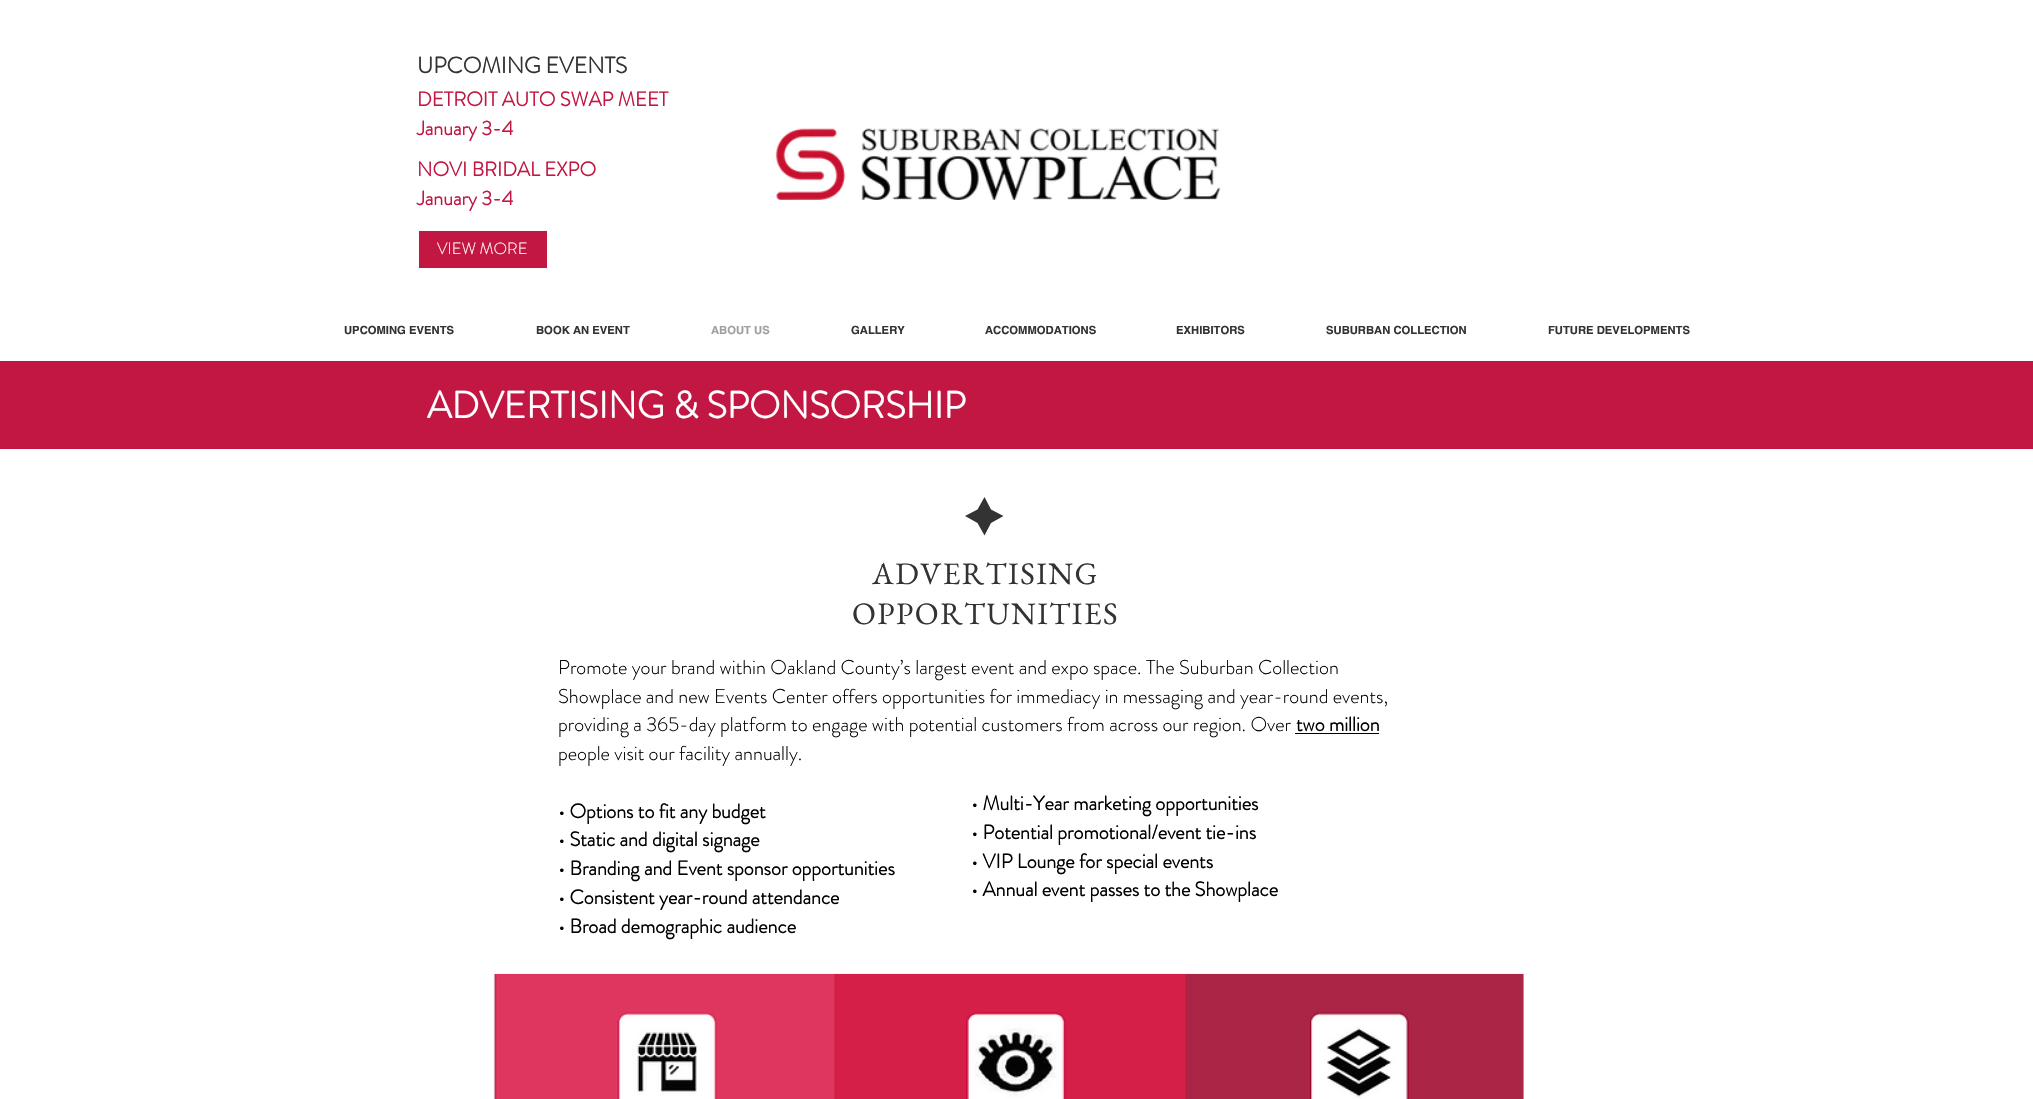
void draw(SkCanvas* canvas) {
    SkPaint paint;
    paint.setAntiAlias(true);
    auto spacedText = [&](const char* s, float x, float y, const SkFont& font, const SkPaint& ink, float letter, float word) {
        std::vector<SkGlyphID> glyphs(font.countText(s, strlen(s), SkTextEncoding::kUTF8));
        std::vector<float> xs(glyphs.size());
        font.textToGlyphs(s, strlen(s), SkTextEncoding::kUTF8, glyphs);
        font.getXPos(glyphs, xs, x);
        float extra = 0;
        for (size_t i = 0; i < glyphs.size(); i++) {
            xs[i] += extra;
            extra += letter + word * (glyphs[i] == font.unicharToGlyph(' '));
        }
        canvas->drawTextBlob(SkTextBlob::MakeFromPosHGlyphs(glyphs, xs, y, font), 0, 0, ink);
    };
    canvas->clear(0xFFFFFFFF);
    SkFont font1(fontMgr->matchFamilyStyle("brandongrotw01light", SkFontStyle::Bold()), 22.5f);
    font1.setSubpixel(true);
    paint.setColor(0xFF333333);
    canvas->drawString("UPCOMING EVENTS", 417, 73, font1, paint);
    SkFont font2(fontMgr->matchFamilyStyle("brandongrotw01light", SkFontStyle::Bold()), 20);
    font2.setSubpixel(true);
    paint.setColor(0xFFC21742);
    canvas->drawString("DETROIT AUTO SWAP MEET", 417, 106, font2, paint);
    canvas->drawString("January 3-4", 417, 135, font2, paint);
    canvas->drawString("NOVI BRIDAL EXPO", 417, 176, font2, paint);
    canvas->drawString("January 3-4", 417, 205, font2, paint);
    canvas->drawRect(SkRect::MakeXYWH(418.5f, 230.5f, 129, 38), paint);
    paint.setStyle(SkPaint::kStroke_Style);
    paint.setStrokeWidth(1);
    paint.setColor(0xFFFBFBFB);
    canvas->drawRect(SkRect::MakeXYWH(418.5f, 230.5f, 129, 38), paint);
    SkFont font3(fontMgr->matchFamilyStyle("brandongrotw01light", SkFontStyle(300, SkFontStyle::kNormal_Width, SkFontStyle::kUpright_Slant)), 16.25f);
    font3.setSubpixel(true);
    paint.setStyle(SkPaint::kFill_Style);
    paint.setColor(0xFFFFFFFF);
    canvas->drawString("VIEW MORE", 437, 254, font3, paint);
    canvas->drawImageRect(SkImages::DeferredFromEncodedData(SkData::MakeFromFileName("img1.png")), SkRect::MakeXYWH(775, 128, 446, 72), SkSamplingOptions());
    SkFont font4(fontMgr->matchFamilyStyle("helvetica", SkFontStyle::Bold()), 11.25f);
    font4.setSubpixel(true);
    paint.setColor(0xFF333333);
    canvas->drawString("UPCOMING EVENTS", 344, 334, font4, paint);
    canvas->drawString("BOOK AN EVENT", 536, 334, font4, paint);
    paint.setColor(0xFFA0A09F);
    canvas->drawString("ABOUT US", 711, 334, font4, paint);
    paint.setColor(0xFF333333);
    canvas->drawString("GALLERY", 851, 334, font4, paint);
    canvas->drawString("ACCOMMODATIONS", 985, 334, font4, paint);
    canvas->drawString("EXHIBITORS", 1176, 334, font4, paint);
    canvas->drawString("SUBURBAN COLLECTION", 1326, 334, font4, paint);
    canvas->drawString("FUTURE DEVELOPMENTS", 1548, 334, font4, paint);
    paint.setColor(0xFFC21742);
    canvas->drawRect(SkRect::MakeXYWH(0, 361, 2033, 88), paint);
    SkFont font5(fontMgr->matchFamilyStyle("brandongrotw01light", SkFontStyle::Bold()), 37.5f);
    font5.setSubpixel(true);
    paint.setColor(0xFFFFFFFF);
    canvas->drawString("ADVERTISING & SPONSORSHIP", 427, 418, font5, paint);
    paint.setColor(0xFF333333);
    canvas->drawPath(SkPathBuilder().moveTo(984.5f, 497).lineTo(991, 509.5f).lineTo(1003.5f, 516).lineTo(991, 523).lineTo(984.5f, 535.5f).lineTo(977.5f, 523).lineTo(965, 516).lineTo(977.5f, 509.5f).close().detach(), paint);
    SkFont font6(fontMgr->matchFamilyStyle("EB Garamond", SkFontStyle::Normal()), 31.25f);
    font6.setSubpixel(true);
    spacedText("ADVERTISING", 872, 584, font6, paint, 1.5f, 0);
    spacedText("OPPORTUNITIES", 852, 624, font6, paint, 1.5f, 0);
    SkFont font7(fontMgr->matchFamilyStyle("brandongrotw01light", SkFontStyle(300, SkFontStyle::kNormal_Width, SkFontStyle::kUpright_Slant)), 20);
    font7.setSubpixel(true);
    paint.setColor(0xFF000000);
    canvas->drawString("Promote your brand within Oakland County’s largest event and expo space. The Suburban Collection", 558, 674, font7, paint);
    canvas->drawString("Showplace and new Events Center offers opportunities for immediacy in messaging and year-round events,", 558, 703, font7, paint);
    canvas->drawString("providing a 365-day platform to engage with potential customers from across our region. Over", 558, 731, font7, paint);
    canvas->drawRect(SkRect::MakeXYWH(1295, 733, 84, 1), paint);
    canvas->drawString("two million", 1296, 731, font2, paint);
    canvas->drawString("people visit our facility annually.", 558, 760, font7, paint);
    canvas->drawString("• Options to fit any budget", 558, 818, font2, paint);
    canvas->drawString("• Static and digital signage", 558, 846, font2, paint);
    canvas->drawString("• Branding and Event sponsor opportunities", 558, 875, font2, paint);
    canvas->drawString("• Consistent year-round attendance", 558, 904, font2, paint);
    canvas->drawString("• Broad demographic audience", 558, 933, font2, paint);
    canvas->drawString("• Multi-Year marketing opportunities", 971, 810, font2, paint);
    canvas->drawString("• Potential promotional/event tie-ins", 971, 839, font2, paint);
    canvas->drawString("• VIP Lounge for special events", 971, 868, font2, paint);
    canvas->drawString("• Annual event passes to the Showplace", 971, 896, font2, paint);
    canvas->drawImageRect(SkImages::DeferredFromEncodedData(SkData::MakeFromFileName("img2.png")), SkRect::MakeXYWH(493, 973, 1031, 126), SkSamplingOptions());
}
